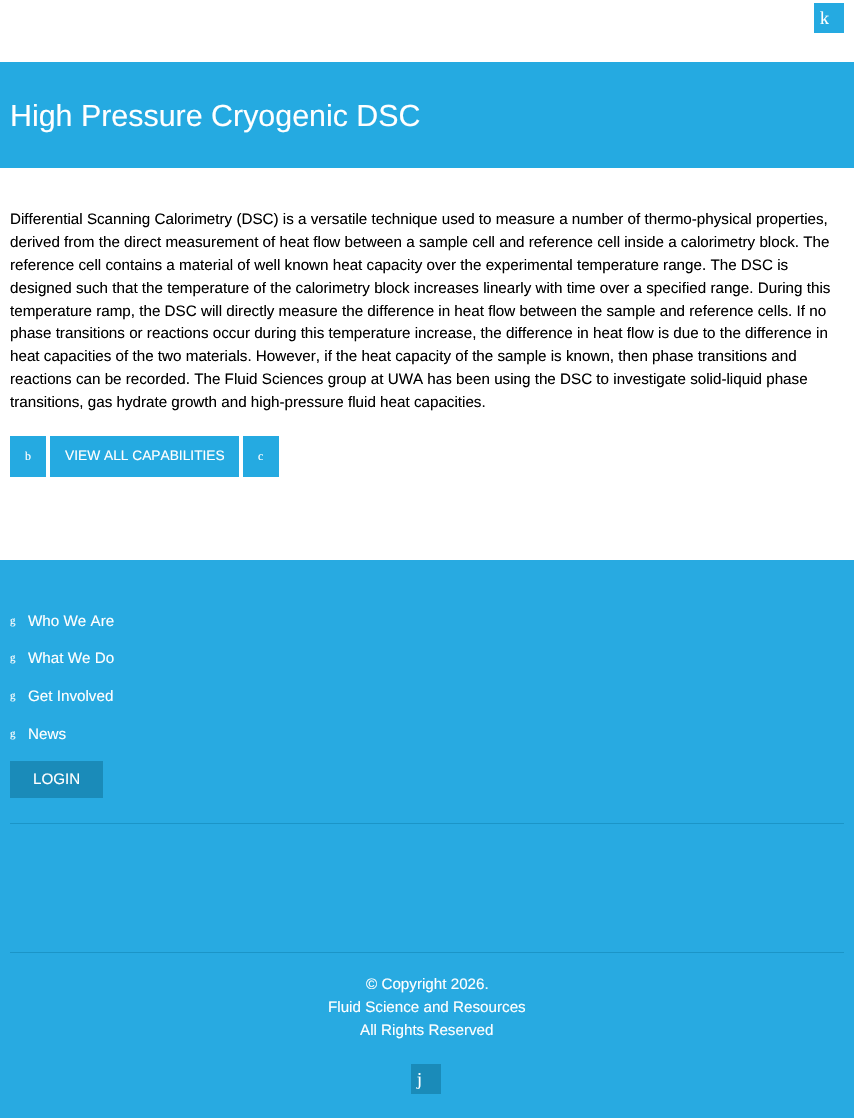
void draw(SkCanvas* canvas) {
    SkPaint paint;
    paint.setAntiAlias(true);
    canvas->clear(0xFFFFFFFF);
    paint.setColor(0xFF25AAE1);
    canvas->drawRect(SkRect::MakeXYWH(814, 3, 30, 30), paint);
    SkFont font1(fontMgr->matchFamilyStyle("Liberation Serif", SkFontStyle::Normal()), 18);
    font1.setSubpixel(true);
    paint.setColor(0xFFFFFFFF);
    canvas->drawString("k", 820, 24, font1, paint);
    paint.setColor(0xFF25AAE1);
    canvas->drawRect(SkRect::MakeXYWH(0, 62, 854, 106), paint);
    SkFont font2(fontMgr->matchFamilyStyle("Liberation Sans", SkFontStyle::Normal()), 30.4f);
    font2.setSubpixel(true);
    paint.setColor(0xFFFFFFFF);
    canvas->drawString("High Pressure Cryogenic DSC", 10, 126, font2, paint);
    SkFont font3(fontMgr->matchFamilyStyle("Liberation Sans", SkFontStyle::Normal()), 15.2f);
    font3.setSubpixel(true);
    paint.setColor(0xFF000000);
    canvas->drawString("Differential Scanning Calorimetry (DSC) is a versatile technique used to measure a number of thermo-physical properties,", 10, 224, font3, paint);
    canvas->drawString("derived from the direct measurement of heat flow between a sample cell and reference cell inside a calorimetry block. The", 10, 247, font3, paint);
    canvas->drawString("reference cell contains a material of well known heat capacity over the experimental temperature range. The DSC is", 10, 270, font3, paint);
    canvas->drawString("designed such that the temperature of the calorimetry block increases linearly with time over a specified range. During this", 10, 293, font3, paint);
    canvas->drawString("temperature ramp, the DSC will directly measure the difference in heat flow between the sample and reference cells. If no", 10, 316, font3, paint);
    canvas->drawString("phase transitions or reactions occur during this temperature increase, the difference in heat flow is due to the difference in", 10, 338, font3, paint);
    canvas->drawString("heat capacities of the two materials. However, if the heat capacity of the sample is known, then phase transitions and", 10, 361, font3, paint);
    canvas->drawString("reactions can be recorded. The Fluid Sciences group at UWA has been using the DSC to investigate solid-liquid phase", 10, 384, font3, paint);
    canvas->drawString("transitions, gas hydrate growth and high-pressure fluid heat capacities.", 10, 407, font3, paint);
    paint.setColor(0xFF25AAE1);
    canvas->drawRect(SkRect::MakeXYWH(10, 436, 36, 41), paint);
    SkFont font4(fontMgr->matchFamilyStyle("Liberation Serif", SkFontStyle::Normal()), 12);
    font4.setSubpixel(true);
    paint.setColor(0xFFFFFFFF);
    canvas->drawString("b", 25, 460, font4, paint);
    paint.setColor(0xFF25AAE1);
    canvas->drawRect(SkRect::MakeXYWH(50, 436, 189, 41), paint);
    SkFont font5(fontMgr->matchFamilyStyle("Liberation Sans", SkFontStyle::Normal()), 13.75f);
    font5.setSubpixel(true);
    paint.setColor(0xFFFFFFFF);
    canvas->drawString("VIEW ALL CAPABILITIES", 65, 460, font5, paint);
    paint.setColor(0xFF25AAE1);
    canvas->drawRect(SkRect::MakeXYWH(243, 436, 36, 41), paint);
    paint.setColor(0xFFFFFFFF);
    canvas->drawString("c", 258, 460, font4, paint);
    paint.setColor(0xFF28AAE1);
    canvas->drawRect(SkRect::MakeXYWH(0, 560, 854, 558), paint);
    paint.setColor(0xFF1B95C7);
    canvas->drawRect(SkRect::MakeXYWH(10, 823, 834, 1), paint);
    SkFont font6(fontMgr->matchFamilyStyle("Liberation Serif", SkFontStyle::Normal()), 11);
    font6.setSubpixel(true);
    paint.setColor(0xFFFFFFFF);
    canvas->drawString("g", 10, 624, font6, paint);
    canvas->drawString("Who We Are", 28, 626, font3, paint);
    canvas->drawString("g", 10, 661, font6, paint);
    canvas->drawString("What We Do", 28, 663, font3, paint);
    canvas->drawString("g", 10, 699, font6, paint);
    canvas->drawString("Get Involved", 28, 701, font3, paint);
    canvas->drawString("g", 10, 737, font6, paint);
    canvas->drawString("News", 28, 739, font3, paint);
    paint.setColor(0xFF1A8BB9);
    canvas->drawRect(SkRect::MakeXYWH(10, 761, 93, 37), paint);
    paint.setColor(0xFFFFFFFF);
    canvas->drawString("LOGIN", 33, 784, font3, paint);
    paint.setColor(0xFF1B95C7);
    canvas->drawRect(SkRect::MakeXYWH(10, 952, 834, 1), paint);
    paint.setColor(0xFFFFFFFF);
    canvas->drawString("© Copyright 2026.", 366, 989, font3, paint);
    canvas->drawString("Fluid Science and Resources", 328, 1012, font3, paint);
    canvas->drawString("All Rights Reserved", 360, 1035, font3, paint);
    paint.setColor(0xFF1A8BB9);
    canvas->drawRect(SkRect::MakeXYWH(411, 1064, 30, 30), paint);
    paint.setColor(0xFFFFFFFF);
    canvas->drawString("j", 417, 1085, font1, paint);
}
